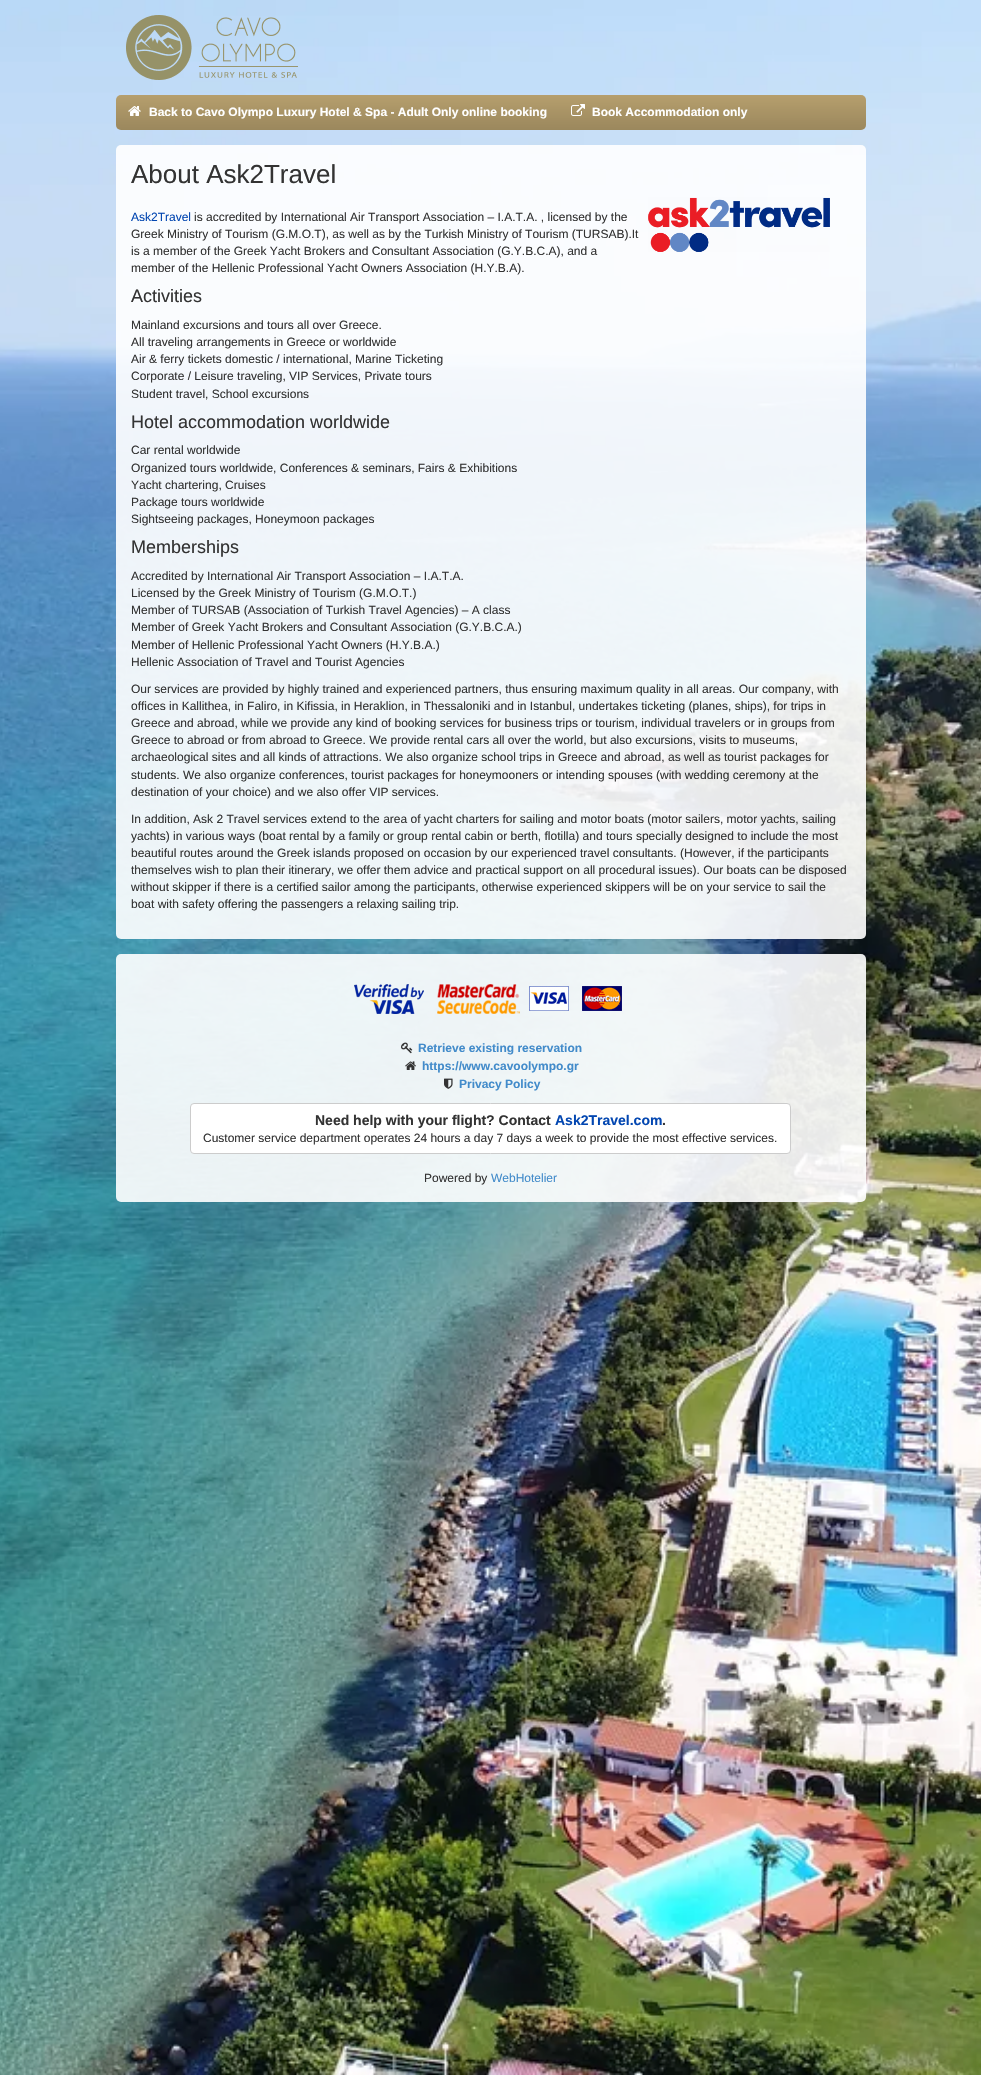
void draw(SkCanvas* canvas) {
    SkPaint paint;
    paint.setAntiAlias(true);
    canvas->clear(0xFFFFFFFF);
    canvas->drawImageRect(SkImages::DeferredFromEncodedData(SkData::MakeFromFileName("img1.png")), SkRect::MakeXYWH(0, 0, 981, 2075), SkSamplingOptions());
    canvas->drawImageRect(SkImages::DeferredFromEncodedData(SkData::MakeFromFileName("img2.png")), SkRect::MakeXYWH(126, 15, 172, 65), SkSamplingOptions());
    paint.setColor(0xFFB69F6D);
    canvas->drawRoundRect(SkRect::MakeXYWH(116, 95, 750, 35), 5, 5, paint);
    {
        const SkColor colors[] = {0x00000000, 0x26000000};
        const float stops[] = {0, 1};
        const SkPoint ends[] = {{491, 95}, {491, 130}};
        paint.setShader(SkGradientShader::MakeLinear(ends, colors, stops, 2, SkTileMode::kClamp));
        paint.setAlpha(255);
    }
    canvas->drawRoundRect(SkRect::MakeXYWH(116, 95, 750, 35), 5, 5, paint);
    canvas->drawImageRect(SkImages::DeferredFromEncodedData(SkData::MakeFromFileName("img3.png")), SkRect::MakeXYWH(128, 106, 13, 10), SkSamplingOptions());
    SkFont font1(fontMgr->matchFamilyStyle("Liberation Sans", SkFontStyle::Bold()), 12);
    font1.setSubpixel(true);
    paint.setShader(nullptr);
    paint.setColor(0xFFFFFFFF);
    canvas->drawString("Back to Cavo Olympo Luxury Hotel & Spa - Adult Only online booking", 149, 116, font1, paint);
    canvas->drawImageRect(SkImages::DeferredFromEncodedData(SkData::MakeFromFileName("img4.png")), SkRect::MakeXYWH(571, 104, 14, 12), SkSamplingOptions());
    canvas->drawString("Book Accommodation only", 592, 116, font1, paint);
    paint.setColor(0xE6FFFFFF);
    canvas->drawRoundRect(SkRect::MakeXYWH(116, 145, 750, 794), 5, 5, paint);
    SkFont font2(fontMgr->matchFamilyStyle("Liberation Sans", SkFontStyle::Normal()), 26);
    font2.setSubpixel(true);
    paint.setColor(0xFF333333);
    canvas->drawString("About Ask2Travel", 131, 183, font2, paint);
    SkFont font3(fontMgr->matchFamilyStyle("Liberation Sans", SkFontStyle::Normal()), 12);
    font3.setSubpixel(true);
    paint.setColor(0xFF0246B1);
    canvas->drawString("Ask2Travel", 131, 221, font3, paint);
    paint.setColor(0xFF333333);
    canvas->drawString("is accredited by International Air Transport Association – I.A.T.A. , licensed by the", 194, 221, font3, paint);
    canvas->drawString("Greek Ministry of Tourism (G.M.O.T), as well as by the Turkish Ministry of Tourism (TURSAB).It", 131, 238, font3, paint);
    canvas->drawString("is a member of the Greek Yacht Brokers and Consultant Association (G.Y.B.C.A), and a", 131, 255, font3, paint);
    canvas->drawString("member of the Hellenic Professional Yacht Owners Association (H.Y.B.A).", 131, 272, font3, paint);
    canvas->drawImageRect(SkImages::DeferredFromEncodedData(SkData::MakeFromFileName("img5.png")), SkRect::MakeXYWH(648, 197, 182, 55), SkSamplingOptions());
    SkFont font4(fontMgr->matchFamilyStyle("Liberation Sans", SkFontStyle::Normal()), 18);
    font4.setSubpixel(true);
    canvas->drawString("Activities", 131, 302, font4, paint);
    canvas->drawString("Mainland excursions and tours all over Greece.", 131, 329, font3, paint);
    canvas->drawString("All traveling arrangements in Greece or worldwide", 131, 346, font3, paint);
    canvas->drawString("Air & ferry tickets domestic / international, Marine Ticketing", 131, 363, font3, paint);
    canvas->drawString("Corporate / Leisure traveling, VIP Services, Private tours", 131, 380, font3, paint);
    canvas->drawString("Student travel, School excursions", 131, 398, font3, paint);
    canvas->drawString("Hotel accommodation worldwide", 131, 428, font4, paint);
    canvas->drawString("Car rental worldwide", 131, 454, font3, paint);
    canvas->drawString("Organized tours worldwide, Conferences & seminars, Fairs & Exhibitions", 131, 472, font3, paint);
    canvas->drawString("Yacht chartering, Cruises", 131, 489, font3, paint);
    canvas->drawString("Package tours worldwide", 131, 506, font3, paint);
    canvas->drawString("Sightseeing packages, Honeymoon packages", 131, 523, font3, paint);
    canvas->drawString("Memberships", 131, 553, font4, paint);
    canvas->drawString("Accredited by International Air Transport Association – I.A.T.A.", 131, 580, font3, paint);
    canvas->drawString("Licensed by the Greek Ministry of Tourism (G.M.O.T.)", 131, 597, font3, paint);
    canvas->drawString("Member of TURSAB (Association of Turkish Travel Agencies) – A class", 131, 614, font3, paint);
    canvas->drawString("Member of Greek Yacht Brokers and Consultant Association (G.Y.B.C.A.)", 131, 631, font3, paint);
    canvas->drawString("Member of Hellenic Professional Yacht Owners (H.Y.B.A.)", 131, 649, font3, paint);
    canvas->drawString("Hellenic Association of Travel and Tourist Agencies", 131, 666, font3, paint);
    canvas->drawString("Our services are provided by highly trained and experienced partners, thus ensuring maximum quality in all areas. Our company, with", 131, 693, font3, paint);
    canvas->drawString("offices in Kallithea, in Faliro, in Kifissia, in Heraklion, in Thessaloniki and in Istanbul, undertakes ticketing (planes, ships), for trips in", 131, 710, font3, paint);
    canvas->drawString("Greece and abroad, while we provide any kind of booking services for business trips or tourism, individual travelers or in groups from", 131, 727, font3, paint);
    canvas->drawString("Greece to abroad or from abroad to Greece. We provide rental cars all over the world, but also excursions, visits to museums,", 131, 744, font3, paint);
    canvas->drawString("archaeological sites and all kinds of attractions. We also organize school trips in Greece and abroad, as well as tourist packages for", 131, 761, font3, paint);
    canvas->drawString("students. We also organize conferences, tourist packages for honeymooners or intending spouses (with wedding ceremony at the", 131, 779, font3, paint);
    canvas->drawString("destination of your choice) and we also offer VIP services.", 131, 796, font3, paint);
    canvas->drawString("In addition, Ask 2 Travel services extend to the area of yacht charters for sailing and motor boats (motor sailers, motor yachts, sailing", 131, 823, font3, paint);
    canvas->drawString("yachts) in various ways (boat rental by a family or group rental cabin or berth, flotilla) and tours specially designed to include the most", 131, 840, font3, paint);
    canvas->drawString("beautiful routes around the Greek islands proposed on occasion by our experienced travel consultants. (However, if the participants", 131, 857, font3, paint);
    canvas->drawString("themselves wish to plan their itinerary, we offer them advice and practical support on all procedural issues). Our boats can be disposed", 131, 874, font3, paint);
    canvas->drawString("without skipper if there is a certified sailor among the participants, otherwise experienced skippers will be on your service to sail the", 131, 891, font3, paint);
    canvas->drawString("boat with safety offering the passengers a relaxing sailing trip.", 131, 908, font3, paint);
    paint.setColor(0xE6FFFFFF);
    canvas->drawRoundRect(SkRect::MakeXYWH(116, 954, 750, 248), 5, 5, paint);
    canvas->drawImageRect(SkImages::DeferredFromEncodedData(SkData::MakeFromFileName("img6.png")), SkRect::MakeXYWH(354, 984, 70, 30), SkSamplingOptions());
    canvas->drawImageRect(SkImages::DeferredFromEncodedData(SkData::MakeFromFileName("img7.png")), SkRect::MakeXYWH(437, 984, 83, 30), SkSamplingOptions());
    canvas->drawImageRect(SkImages::DeferredFromEncodedData(SkData::MakeFromFileName("img8.png")), SkRect::MakeXYWH(529, 986, 40, 25), SkSamplingOptions());
    canvas->drawImageRect(SkImages::DeferredFromEncodedData(SkData::MakeFromFileName("img9.png")), SkRect::MakeXYWH(582, 986, 40, 25), SkSamplingOptions());
    canvas->drawImageRect(SkImages::DeferredFromEncodedData(SkData::MakeFromFileName("img10.png")), SkRect::MakeXYWH(401, 1042, 12, 12), SkSamplingOptions());
    paint.setColor(0xFF428BCA);
    canvas->drawString("Retrieve existing reservation", 418, 1052, font1, paint);
    canvas->drawImageRect(SkImages::DeferredFromEncodedData(SkData::MakeFromFileName("img11.png")), SkRect::MakeXYWH(405, 1061, 11, 9), SkSamplingOptions());
    canvas->drawString("https://www.cavoolympo.gr", 422, 1070, font1, paint);
    canvas->drawImageRect(SkImages::DeferredFromEncodedData(SkData::MakeFromFileName("img12.png")), SkRect::MakeXYWH(444, 1078, 9, 11), SkSamplingOptions());
    canvas->drawString("Privacy Policy", 459, 1088, font1, paint);
    paint.setColor(0xFFFFFFFF);
    canvas->drawRoundRect(SkRect::MakeXYWH(190.5f, 1103.5f, 600, 50), 3.5f, 3.5f, paint);
    paint.setStyle(SkPaint::kStroke_Style);
    paint.setStrokeWidth(1);
    paint.setColor(0xFFCCCCCC);
    canvas->drawRoundRect(SkRect::MakeXYWH(190.5f, 1103.5f, 600, 50), 3.5f, 3.5f, paint);
    SkFont font5(fontMgr->matchFamilyStyle("Liberation Sans", SkFontStyle::Bold()), 14);
    font5.setSubpixel(true);
    paint.setStyle(SkPaint::kFill_Style);
    paint.setColor(0xFF333333);
    canvas->drawString("Need help with your flight? Contact", 315, 1125, font5, paint);
    paint.setColor(0xFF0246B1);
    canvas->drawString("Ask2Travel.com", 555, 1125, font5, paint);
    paint.setColor(0xFF333333);
    canvas->drawString(".", 662, 1125, font5, paint);
    canvas->drawString("Customer service department operates 24 hours a day 7 days a week to provide the most effective services.", 203, 1142, font3, paint);
    canvas->drawString("Powered by", 424, 1182, font3, paint);
    paint.setColor(0xFF428BCA);
    canvas->drawString("WebHotelier", 491, 1182, font3, paint);
}
